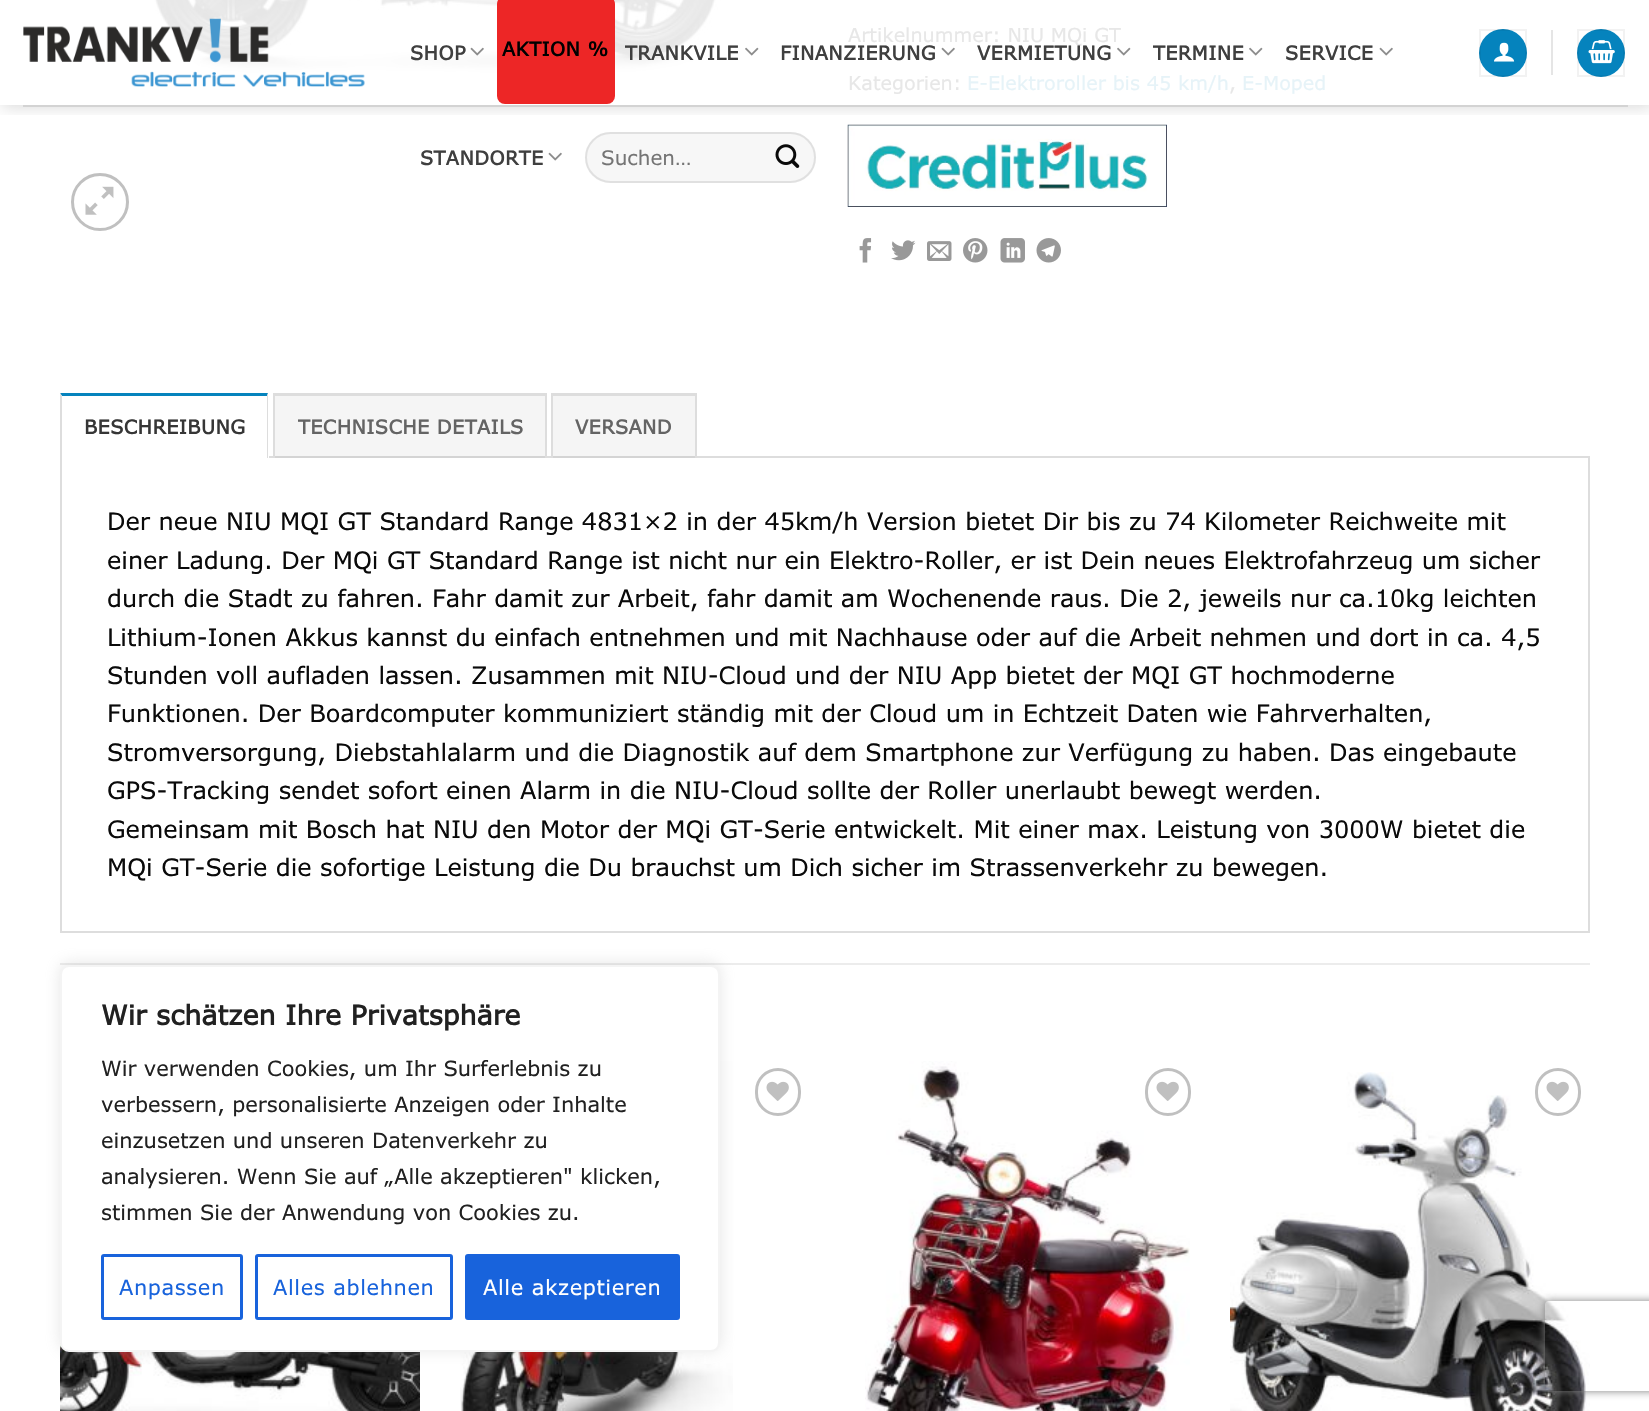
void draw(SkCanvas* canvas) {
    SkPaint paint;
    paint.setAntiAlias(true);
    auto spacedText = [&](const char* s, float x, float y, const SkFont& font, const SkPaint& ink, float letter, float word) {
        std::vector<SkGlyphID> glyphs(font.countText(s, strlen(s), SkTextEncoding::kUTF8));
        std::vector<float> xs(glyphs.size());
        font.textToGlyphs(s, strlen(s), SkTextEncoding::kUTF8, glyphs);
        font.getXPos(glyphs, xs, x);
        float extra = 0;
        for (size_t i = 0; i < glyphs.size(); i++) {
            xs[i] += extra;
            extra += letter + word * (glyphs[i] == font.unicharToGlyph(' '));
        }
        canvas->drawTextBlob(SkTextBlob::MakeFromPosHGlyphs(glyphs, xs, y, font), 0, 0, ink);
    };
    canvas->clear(0xFFFFFFFF);
    canvas->drawImageRect(SkImages::DeferredFromEncodedData(SkData::MakeFromFileName("img1.png")), SkRect::MakeXYWH(154, 0, 567, 75), SkSamplingOptions());
    paint.setStyle(SkPaint::kStroke_Style);
    paint.setStrokeWidth(3);
    paint.setColor(0xFFC0C0C0);
    canvas->drawCircle(100, 202, 27.5f, paint);
    canvas->drawImageRect(SkImages::DeferredFromEncodedData(SkData::MakeFromFileName("img2.png")), SkRect::MakeXYWH(85, 186, 29, 29), SkSamplingOptions());
    SkFont font1(fontMgr->matchFamilyStyle("Verdana", SkFontStyle::Normal()), 19.25f);
    font1.setSubpixel(true);
    paint.setStyle(SkPaint::kFill_Style);
    paint.setColor(0xFFE7E7E7);
    canvas->drawString("Artikelnummer: NIU MQi GT", 848, 42, font1, paint);
    canvas->drawString("Kategorien:", 848, 90, font1, paint);
    paint.setColor(0xFFE6F3F8);
    canvas->drawString("E-Elektroroller bis 45 km/h", 967, 90, font1, paint);
    paint.setColor(0xFFE7E7E7);
    canvas->drawString(",", 1229, 90, font1, paint);
    paint.setColor(0xFFE6F3F8);
    canvas->drawString("E-Moped", 1242, 90, font1, paint);
    canvas->drawImageRect(SkImages::DeferredFromEncodedData(SkData::MakeFromFileName("img3.png")), SkRect::MakeXYWH(847, 124, 320, 83), SkSamplingOptions());
    canvas->drawImageRect(SkImages::DeferredFromEncodedData(SkData::MakeFromFileName("img4.png")), SkRect::MakeXYWH(859, 238, 13, 25), SkSamplingOptions());
    canvas->drawImageRect(SkImages::DeferredFromEncodedData(SkData::MakeFromFileName("img5.png")), SkRect::MakeXYWH(891, 240, 25, 21), SkSamplingOptions());
    canvas->drawImageRect(SkImages::DeferredFromEncodedData(SkData::MakeFromFileName("img6.png")), SkRect::MakeXYWH(927, 241, 25, 20), SkSamplingOptions());
    canvas->drawImageRect(SkImages::DeferredFromEncodedData(SkData::MakeFromFileName("img7.png")), SkRect::MakeXYWH(963, 238, 25, 25), SkSamplingOptions());
    canvas->drawImageRect(SkImages::DeferredFromEncodedData(SkData::MakeFromFileName("img8.png")), SkRect::MakeXYWH(1000, 238, 25, 25), SkSamplingOptions());
    canvas->drawImageRect(SkImages::DeferredFromEncodedData(SkData::MakeFromFileName("img9.png")), SkRect::MakeXYWH(1036, 238, 25, 25), SkSamplingOptions());
    paint.setStyle(SkPaint::kStroke_Style);
    paint.setStrokeWidth(2);
    paint.setColor(0xFFDDDDDD);
    canvas->drawRect(SkRect::MakeXYWH(61, 457, 1528, 475), paint);
    paint.setStyle(SkPaint::kFill_Style);
    paint.setColor(0xFFFFFFFF);
    canvas->drawRect(SkRect::MakeXYWH(60, 456, 209, 2), paint);
    paint.setColor(0xFF0583BD);
    canvas->drawPath(SkPathBuilder().moveTo(60, 393).lineTo(268, 393).lineTo(267, 396).lineTo(62, 396).close().detach(), paint);
    paint.setColor(0xFFDDDDDD);
    canvas->drawPath(SkPathBuilder().moveTo(268, 393).lineTo(268, 458).lineTo(267, 458).lineTo(267, 396).close().detach(), paint);
    canvas->drawPath(SkPathBuilder().moveTo(60, 458).lineTo(60, 393).lineTo(62, 396).lineTo(62, 458).close().detach(), paint);
    SkFont font2(fontMgr->matchFamilyStyle("Verdana", SkFontStyle::Bold()), 19.25f);
    font2.setSubpixel(true);
    paint.setColor(0xFF363636);
    spacedText("BESCHREIBUNG", 84, 434, font2, paint, 0.4f, 0);
    paint.setColor(0x0A000000);
    canvas->drawRect(SkRect::MakeXYWH(275, 396, 270, 62), paint);
    paint.setColor(0xFFDDDDDD);
    canvas->drawRect(SkRect::MakeXYWH(273, 393, 273, 3), paint);
    canvas->drawRect(SkRect::MakeXYWH(545, 393, 2, 65), paint);
    canvas->drawRect(SkRect::MakeXYWH(273, 393, 2, 65), paint);
    paint.setColor(0xFF646464);
    spacedText("TECHNISCHE DETAILS", 298, 434, font2, paint, 0.4f, 0);
    paint.setColor(0x0A000000);
    canvas->drawRect(SkRect::MakeXYWH(553, 396, 142, 62), paint);
    paint.setColor(0xFFDDDDDD);
    canvas->drawRect(SkRect::MakeXYWH(551, 393, 145, 3), paint);
    canvas->drawRect(SkRect::MakeXYWH(695, 393, 2, 65), paint);
    canvas->drawRect(SkRect::MakeXYWH(551, 393, 2, 65), paint);
    paint.setColor(0xFF646464);
    spacedText("VERSAND", 575, 434, font2, paint, 0.4f, 0);
    SkFont font3(fontMgr->matchFamilyStyle("Verdana", SkFontStyle::Normal()), 24);
    font3.setSubpixel(true);
    paint.setColor(0xFF0A0A0A);
    canvas->drawString("Der neue NIU MQI GT Standard Range 4831×2 in der 45km/h Version bietet Dir bis zu 74 Kilometer Reichweite mit", 107, 530, font3, paint);
    canvas->drawString("einer Ladung. Der MQi GT Standard Range ist nicht nur ein Elektro-Roller, er ist Dein neues Elektrofahrzeug um sicher", 107, 569, font3, paint);
    canvas->drawString("durch die Stadt zu fahren. Fahr damit zur Arbeit, fahr damit am Wochenende raus. Die 2, jeweils nur ca.10kg leichten", 107, 607, font3, paint);
    canvas->drawString("Lithium-Ionen Akkus kannst du einfach entnehmen und mit Nachhause oder auf die Arbeit nehmen und dort in ca. 4,5", 107, 646, font3, paint);
    canvas->drawString("Stunden voll aufladen lassen. Zusammen mit NIU-Cloud und der NIU App bietet der MQI GT hochmoderne", 107, 684, font3, paint);
    canvas->drawString("Funktionen. Der Boardcomputer kommuniziert ständig mit der Cloud um in Echtzeit Daten wie Fahrverhalten,", 107, 722, font3, paint);
    canvas->drawString("Stromversorgung, Diebstahlalarm und die Diagnostik auf dem Smartphone zur Verfügung zu haben. Das eingebaute", 107, 761, font3, paint);
    canvas->drawString("GPS-Tracking sendet sofort einen Alarm in die NIU-Cloud sollte der Roller unerlaubt bewegt werden.", 107, 799, font3, paint);
    canvas->drawString("Gemeinsam mit Bosch hat NIU den Motor der MQi GT-Serie entwickelt. Mit einer max. Leistung von 3000W bietet die", 107, 838, font3, paint);
    canvas->drawString("MQi GT-Serie die sofortige Leistung die Du brauchst um Dich sicher im Strassenverkehr zu bewegen.", 107, 876, font3, paint);
    paint.setColor(0xFFECECEC);
    canvas->drawRect(SkRect::MakeXYWH(60, 963, 1530, 2), paint);
    canvas->drawImageRect(SkImages::DeferredFromEncodedData(SkData::MakeFromFileName("img10.png")), SkRect::MakeXYWH(60, 1343, 360, 68), SkSamplingOptions());
    canvas->drawImageRect(SkImages::DeferredFromEncodedData(SkData::MakeFromFileName("img11.png")), SkRect::MakeXYWH(460, 1061, 273, 350), SkSamplingOptions());
    paint.setStyle(SkPaint::kStroke_Style);
    paint.setStrokeWidth(3);
    paint.setColor(0xFFC0C0C0);
    canvas->drawRoundRect(SkRect::MakeXYWH(756.5f, 1069.5f, 43, 45), 21.5f, 21.5f, paint);
    canvas->drawImageRect(SkImages::DeferredFromEncodedData(SkData::MakeFromFileName("img12.png")), SkRect::MakeXYWH(766, 1081, 23, 20), SkSamplingOptions());
    canvas->drawImageRect(SkImages::DeferredFromEncodedData(SkData::MakeFromFileName("img13.png")), SkRect::MakeXYWH(865, 1061, 325, 350), SkSamplingOptions());
    canvas->drawRoundRect(SkRect::MakeXYWH(1146.5f, 1069.5f, 43, 45), 21.5f, 21.5f, paint);
    canvas->drawImageRect(SkImages::DeferredFromEncodedData(SkData::MakeFromFileName("img12.png")), SkRect::MakeXYWH(1156, 1081, 23, 20), SkSamplingOptions());
    canvas->drawImageRect(SkImages::DeferredFromEncodedData(SkData::MakeFromFileName("img14.png")), SkRect::MakeXYWH(1230, 1072, 360, 339), SkSamplingOptions());
    canvas->drawRoundRect(SkRect::MakeXYWH(1536.5f, 1069.5f, 43, 45), 21.5f, 21.5f, paint);
    canvas->drawImageRect(SkImages::DeferredFromEncodedData(SkData::MakeFromFileName("img12.png")), SkRect::MakeXYWH(1546, 1081, 23, 20), SkSamplingOptions());
    canvas->save();
    canvas->clipRect(SkRect::MakeXYWH(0, 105, 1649, 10));
    paint.setStyle(SkPaint::kFill_Style);
    paint.setColor(0x26000000);
    paint.setMaskFilter(SkMaskFilter::MakeBlur(kNormal_SkBlurStyle, 7.5f));
    canvas->drawRect(SkRect::MakeXYWH(2, 2, 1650, 105), paint);
    paint.setMaskFilter(nullptr);
    canvas->restore();
    canvas->drawImageRect(SkImages::DeferredFromEncodedData(SkData::MakeFromFileName("img15.png")), SkRect::MakeXYWH(23, 18, 342, 69), SkSamplingOptions());
    paint.setColor(0xFF3F3F3F);
    spacedText("SHOP", 410, 60, font2, paint, 0.4f, 0);
    canvas->drawImageRect(SkImages::DeferredFromEncodedData(SkData::MakeFromFileName("img16.png")), SkRect::MakeXYWH(470, 47, 14, 9), SkSamplingOptions());
    paint.setColor(0xFFED2626);
    canvas->drawRoundRect(SkRect::MakeXYWH(497, -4, 118, 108), 8, 8, paint);
    paint.setColor(0xFF000000);
    spacedText("AKTION %", 502, 56, font2, paint, 0.4f, 0);
    paint.setColor(0xFF3F3F3F);
    spacedText("TRANKVILE", 625, 60, font2, paint, 0.4f, 0);
    canvas->drawImageRect(SkImages::DeferredFromEncodedData(SkData::MakeFromFileName("img17.png")), SkRect::MakeXYWH(745, 47, 14, 9), SkSamplingOptions());
    spacedText("FINANZIERUNG", 780, 60, font2, paint, 0.4f, 0);
    canvas->drawImageRect(SkImages::DeferredFromEncodedData(SkData::MakeFromFileName("img18.png")), SkRect::MakeXYWH(941, 47, 14, 9), SkSamplingOptions());
    spacedText("VERMIETUNG", 977, 60, font2, paint, 0.4f, 0);
    canvas->drawImageRect(SkImages::DeferredFromEncodedData(SkData::MakeFromFileName("img17.png")), SkRect::MakeXYWH(1117, 47, 14, 9), SkSamplingOptions());
    spacedText("TERMINE", 1153, 60, font2, paint, 0.4f, 0);
    canvas->drawImageRect(SkImages::DeferredFromEncodedData(SkData::MakeFromFileName("img17.png")), SkRect::MakeXYWH(1249, 47, 14, 9), SkSamplingOptions());
    spacedText("SERVICE", 1285, 60, font2, paint, 0.4f, 0);
    canvas->drawImageRect(SkImages::DeferredFromEncodedData(SkData::MakeFromFileName("img18.png")), SkRect::MakeXYWH(1379, 47, 14, 9), SkSamplingOptions());
    spacedText("STANDORTE", 420, 165, font2, paint, 0.4f, 0);
    canvas->drawImageRect(SkImages::DeferredFromEncodedData(SkData::MakeFromFileName("img18.png")), SkRect::MakeXYWH(548, 152, 14, 9), SkSamplingOptions());
    paint.setColor(0xFFF7F7F7);
    canvas->drawRoundRect(SkRect::MakeXYWH(585, 132, 231, 51), 25.5f, 25.5f, paint);
    paint.setStyle(SkPaint::kStroke_Style);
    paint.setStrokeWidth(2);
    paint.setColor(0x17000000);
    canvas->drawRoundRect(SkRect::MakeXYWH(586, 133, 229, 49), 24.5f, 24.5f, paint);
    SkFont font4(fontMgr->matchFamilyStyle("Verdana", SkFontStyle::Normal()), 20);
    font4.setSubpixel(true);
    paint.setStyle(SkPaint::kFill_Style);
    paint.setColor(0xFF757575);
    canvas->drawString("Suchen…", 601, 165, font4, paint);
    canvas->drawImageRect(SkImages::DeferredFromEncodedData(SkData::MakeFromFileName("img19.png")), SkRect::MakeXYWH(775, 144, 25, 24), SkSamplingOptions());
    paint.setColor(0xFF0583BD);
    canvas->drawCircle(1503, 53, 24, paint);
    paint.setStyle(SkPaint::kStroke_Style);
    paint.setColor(0x0D000000);
    canvas->drawRect(SkRect::MakeXYWH(1480, 30, 46, 46), paint);
    canvas->drawImageRect(SkImages::DeferredFromEncodedData(SkData::MakeFromFileName("img20.png")), SkRect::MakeXYWH(1494, 42, 21, 20), SkSamplingOptions());
    paint.setStyle(SkPaint::kFill_Style);
    paint.setColor(0xFFE5E5E5);
    canvas->drawRect(SkRect::MakeXYWH(1551, 30, 2, 45), paint);
    paint.setColor(0xFF0583BD);
    canvas->drawCircle(1601, 53, 24, paint);
    paint.setStyle(SkPaint::kStroke_Style);
    paint.setColor(0x0D000000);
    canvas->drawRect(SkRect::MakeXYWH(1578, 30, 46, 46), paint);
    canvas->drawImageRect(SkImages::DeferredFromEncodedData(SkData::MakeFromFileName("img21.png")), SkRect::MakeXYWH(1588, 40, 27, 24), SkSamplingOptions());
    paint.setStyle(SkPaint::kFill_Style);
    paint.setColor(0xFFD3D3D3);
    canvas->drawRect(SkRect::MakeXYWH(23, 105, 1605, 2), paint);
    paint.setColor(0x4DACABAB);
    paint.setMaskFilter(SkMaskFilter::MakeBlur(kNormal_SkBlurStyle, 7.5f));
    canvas->drawRoundRect(SkRect::MakeXYWH(60, 963, 660, 387), 9, 9, paint);
    paint.setMaskFilter(nullptr);
    paint.setColor(0xFFFFFFFF);
    canvas->drawRoundRect(SkRect::MakeXYWH(61, 966, 658, 385), 8, 8, paint);
    paint.setStyle(SkPaint::kStroke_Style);
    paint.setColor(0xFFF4F4F4);
    canvas->drawRoundRect(SkRect::MakeXYWH(61, 966, 658, 385), 8, 8, paint);
    SkFont font5(fontMgr->matchFamilyStyle("Verdana", SkFontStyle::Bold()), 27);
    font5.setSubpixel(true);
    paint.setStyle(SkPaint::kFill_Style);
    paint.setColor(0xFF212121);
    canvas->drawString("Wir schätzen Ihre Privatsphäre", 101, 1025, font5, paint);
    SkFont font6(fontMgr->matchFamilyStyle("Verdana", SkFontStyle::Normal()), 21);
    font6.setSubpixel(true);
    canvas->drawString("Wir verwenden Cookies, um Ihr Surferlebnis zu", 101, 1076, font6, paint);
    canvas->drawString("verbessern, personalisierte Anzeigen oder Inhalte", 101, 1112, font6, paint);
    canvas->drawString("einzusetzen und unseren Datenverkehr zu", 101, 1148, font6, paint);
    canvas->drawString("analysieren. Wenn Sie auf „Alle akzeptieren\" klicken,", 101, 1184, font6, paint);
    canvas->drawString("stimmen Sie der Anwendung von Cookies zu.", 101, 1220, font6, paint);
    paint.setStyle(SkPaint::kStroke_Style);
    paint.setStrokeWidth(3);
    paint.setColor(0xFF1863DC);
    canvas->drawRoundRect(SkRect::MakeXYWH(102.5f, 1255.5f, 139, 63), 1.5f, 1.5f, paint);
    paint.setStyle(SkPaint::kFill_Style);
    spacedText("Anpassen", 119, 1295, font6, paint, 0.6f, 0);
    paint.setStyle(SkPaint::kStroke_Style);
    canvas->drawRoundRect(SkRect::MakeXYWH(256.5f, 1255.5f, 195, 63), 1.5f, 1.5f, paint);
    paint.setStyle(SkPaint::kFill_Style);
    spacedText("Alles ablehnen", 273, 1295, font6, paint, 0.6f, 0);
    canvas->drawRoundRect(SkRect::MakeXYWH(466.5f, 1255.5f, 212, 63), 1.5f, 1.5f, paint);
    paint.setStyle(SkPaint::kStroke_Style);
    canvas->drawRoundRect(SkRect::MakeXYWH(466.5f, 1255.5f, 212, 63), 1.5f, 1.5f, paint);
    paint.setStyle(SkPaint::kFill_Style);
    paint.setColor(0xFFFFFFFF);
    spacedText("Alle akzeptieren", 483, 1295, font6, paint, 0.6f, 0);
    canvas->save();
    canvas->clipPath(SkPathBuilder(SkPathFillType::kEvenOdd).moveTo(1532, 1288).lineTo(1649, 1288).lineTo(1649, 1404).lineTo(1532, 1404).close().moveTo(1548, 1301).lineTo(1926, 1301).cubicTo(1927.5f, 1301, 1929, 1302.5f, 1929, 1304).lineTo(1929, 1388).cubicTo(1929, 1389.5f, 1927.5f, 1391, 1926, 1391).lineTo(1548, 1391).cubicTo(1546.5f, 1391, 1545, 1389.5f, 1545, 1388).lineTo(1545, 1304).cubicTo(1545, 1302.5f, 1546.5f, 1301, 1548, 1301).close().detach(), true);
    paint.setColor(0xFF808080);
    paint.setMaskFilter(SkMaskFilter::MakeBlur(kNormal_SkBlurStyle, 4));
    canvas->drawRoundRect(SkRect::MakeXYWH(1545, 1301, 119, 90), 3, 3, paint);
    paint.setMaskFilter(nullptr);
    canvas->restore();
}
